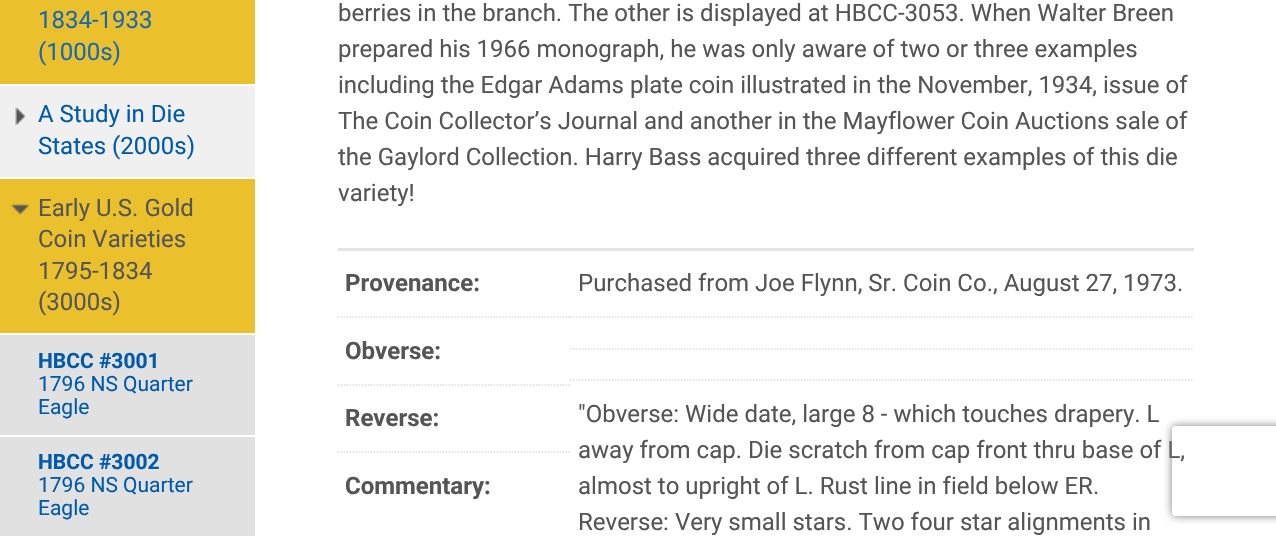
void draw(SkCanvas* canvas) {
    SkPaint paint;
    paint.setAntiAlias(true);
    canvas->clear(0xFFFFFFFF);
    paint.setColor(0xFFF0F0F0);
    canvas->drawRect(SkRect::MakeXYWH(0, 86, 255, 91), paint);
    paint.setColor(0xFFEAC02D);
    canvas->drawRect(SkRect::MakeXYWH(0, 0, 255, 84), paint);
    SkFont font1(fontMgr->matchFamilyStyle("Roboto", SkFontStyle::Normal()), 24);
    font1.setSubpixel(true);
    paint.setColor(0xFF1968B3);
    canvas->drawString("1834-1933", 38, 28, font1, paint);
    canvas->drawString("(1000s)", 38, 60, font1, paint);
    canvas->drawImageRect(SkImages::DeferredFromEncodedData(SkData::MakeFromFileName("img1.png")), SkRect::MakeXYWH(15, 106, 11, 20), SkSamplingOptions());
    paint.setColor(0xFF005AAB);
    canvas->drawString("A Study in Die", 38, 122, font1, paint);
    canvas->drawString("States (2000s)", 38, 154, font1, paint);
    paint.setColor(0xFFEAC02D);
    canvas->drawRect(SkRect::MakeXYWH(0, 179, 255, 154), paint);
    canvas->drawImageRect(SkImages::DeferredFromEncodedData(SkData::MakeFromFileName("img2.png")), SkRect::MakeXYWH(10, 204, 20, 11), SkSamplingOptions());
    paint.setColor(0xFF555555);
    canvas->drawString("Early U.S. Gold", 38, 216, font1, paint);
    canvas->drawString("Coin Varieties", 38, 247, font1, paint);
    canvas->drawString("1795-1834", 38, 279, font1, paint);
    canvas->drawString("(3000s)", 38, 310, font1, paint);
    paint.setColor(0xFFE1E1E1);
    canvas->drawRect(SkRect::MakeXYWH(0, 335, 255, 201), paint);
    SkFont font2(fontMgr->matchFamilyStyle("Roboto", SkFontStyle::Bold()), 21);
    font2.setSubpixel(true);
    paint.setColor(0xFF005AAB);
    canvas->drawString("HBCC #3001", 38, 368, font2, paint);
    SkFont font3(fontMgr->matchFamilyStyle("Roboto", SkFontStyle::Normal()), 21);
    font3.setSubpixel(true);
    canvas->drawString("1796 NS Quarter", 38, 391, font3, paint);
    canvas->drawString("Eagle", 38, 414, font3, paint);
    paint.setColor(0xFFFFFFFF);
    canvas->drawRect(SkRect::MakeXYWH(0, 435, 255, 2), paint);
    paint.setColor(0xFF005AAB);
    canvas->drawString("HBCC #3002", 38, 469, font2, paint);
    canvas->drawString("1796 NS Quarter", 38, 492, font3, paint);
    canvas->drawString("Eagle", 38, 515, font3, paint);
    paint.setColor(0xFF555555);
    canvas->drawString("berries in the branch. The other is displayed at HBCC-3053. When Walter Breen", 338, 21, font1, paint);
    canvas->drawString("prepared his 1966 monograph, he was only aware of two or three examples", 338, 57, font1, paint);
    canvas->drawString("including the Edgar Adams plate coin illustrated in the November, 1934, issue of", 338, 93, font1, paint);
    canvas->drawString("The Coin Collector’s Journal and another in the Mayflower Coin Auctions sale of", 338, 129, font1, paint);
    canvas->drawString("the Gaylord Collection. Harry Bass acquired three different examples of this die", 338, 165, font1, paint);
    canvas->drawString("variety!", 338, 201, font1, paint);
    paint.setColor(0xFFE4E4E4);
    canvas->drawRect(SkRect::MakeXYWH(338, 248, 856, 3), paint);
    SkFont font4(fontMgr->matchFamilyStyle("Roboto", SkFontStyle::Bold()), 24);
    font4.setSubpixel(true);
    paint.setColor(0xFF555555);
    canvas->drawString("Provenance:", 345, 291, font4, paint);
    canvas->drawString("Purchased from Joe Flynn, Sr. Coin Co., August 27, 1973.", 578, 291, font1, paint);
    paint.setStyle(SkPaint::kStroke_Style);
    paint.setStrokeWidth(1.5f);
    paint.setColor(0xFFDDDDDD);
    paint.setPathEffect(SkDashPathEffect::Make({{1.5f, 1.5f}}, 0));
    canvas->drawPath(SkPathBuilder().moveTo(570, 317).lineTo(1194, 317).detach(), paint);
    paint.setPathEffect(nullptr);
    paint.setPathEffect(SkDashPathEffect::Make({{1.5f, 1.5f}}, 0));
    canvas->drawPath(SkPathBuilder().moveTo(337.5f, 317).lineTo(570, 317).detach(), paint);
    paint.setPathEffect(nullptr);
    paint.setStyle(SkPaint::kFill_Style);
    paint.setColor(0xFF555555);
    canvas->drawString("Obverse:", 345, 359, font4, paint);
    paint.setStyle(SkPaint::kStroke_Style);
    paint.setColor(0xFFDDDDDD);
    paint.setPathEffect(SkDashPathEffect::Make({{1.5f, 1.5f}}, 0));
    canvas->drawPath(SkPathBuilder().moveTo(570, 349).lineTo(1194, 349).detach(), paint);
    paint.setPathEffect(nullptr);
    paint.setPathEffect(SkDashPathEffect::Make({{1.5f, 1.5f}}, 0));
    canvas->drawPath(SkPathBuilder().moveTo(337.5f, 385).lineTo(570, 385).detach(), paint);
    paint.setPathEffect(nullptr);
    paint.setStyle(SkPaint::kFill_Style);
    paint.setColor(0xFF555555);
    canvas->drawString("Reverse:", 345, 426, font4, paint);
    paint.setStyle(SkPaint::kStroke_Style);
    paint.setColor(0xFFDDDDDD);
    paint.setPathEffect(SkDashPathEffect::Make({{1.5f, 1.5f}}, 0));
    canvas->drawPath(SkPathBuilder().moveTo(570, 380).lineTo(1194, 380).detach(), paint);
    paint.setPathEffect(nullptr);
    paint.setStyle(SkPaint::kFill_Style);
    paint.setColor(0xFF555555);
    canvas->drawString("\"Obverse: Wide date, large 8 - which touches drapery. L", 578, 422, font1, paint);
    canvas->drawString("away from cap. Die scratch from cap front thru base of L,", 578, 458, font1, paint);
    canvas->drawString("almost to upright of L. Rust line in field below ER.", 578, 494, font1, paint);
    canvas->drawString("Reverse: Very small stars. Two four star alignments in", 578, 530, font1, paint);
    paint.setStyle(SkPaint::kStroke_Style);
    paint.setColor(0xFFDDDDDD);
    paint.setPathEffect(SkDashPathEffect::Make({{1.5f, 1.5f}}, 0));
    canvas->drawPath(SkPathBuilder().moveTo(337.5f, 452).lineTo(570, 452).detach(), paint);
    paint.setPathEffect(nullptr);
    paint.setStyle(SkPaint::kFill_Style);
    paint.setColor(0xFF555555);
    canvas->drawString("Commentary:", 345, 494, font4, paint);
    canvas->save();
    canvas->clipPath(SkPathBuilder(SkPathFillType::kEvenOdd).moveTo(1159, 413).lineTo(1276, 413).lineTo(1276, 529).lineTo(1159, 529).close().moveTo(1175, 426).lineTo(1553, 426).cubicTo(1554.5f, 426, 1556, 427.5f, 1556, 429).lineTo(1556, 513).cubicTo(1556, 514.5f, 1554.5f, 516, 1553, 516).lineTo(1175, 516).cubicTo(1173.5f, 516, 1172, 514.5f, 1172, 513).lineTo(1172, 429).cubicTo(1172, 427.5f, 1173.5f, 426, 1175, 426).close().detach(), true);
    paint.setColor(0xFF808080);
    paint.setMaskFilter(SkMaskFilter::MakeBlur(kNormal_SkBlurStyle, 4));
    canvas->drawRoundRect(SkRect::MakeXYWH(1172, 426, 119, 90), 3, 3, paint);
    paint.setMaskFilter(nullptr);
    canvas->restore();
}
